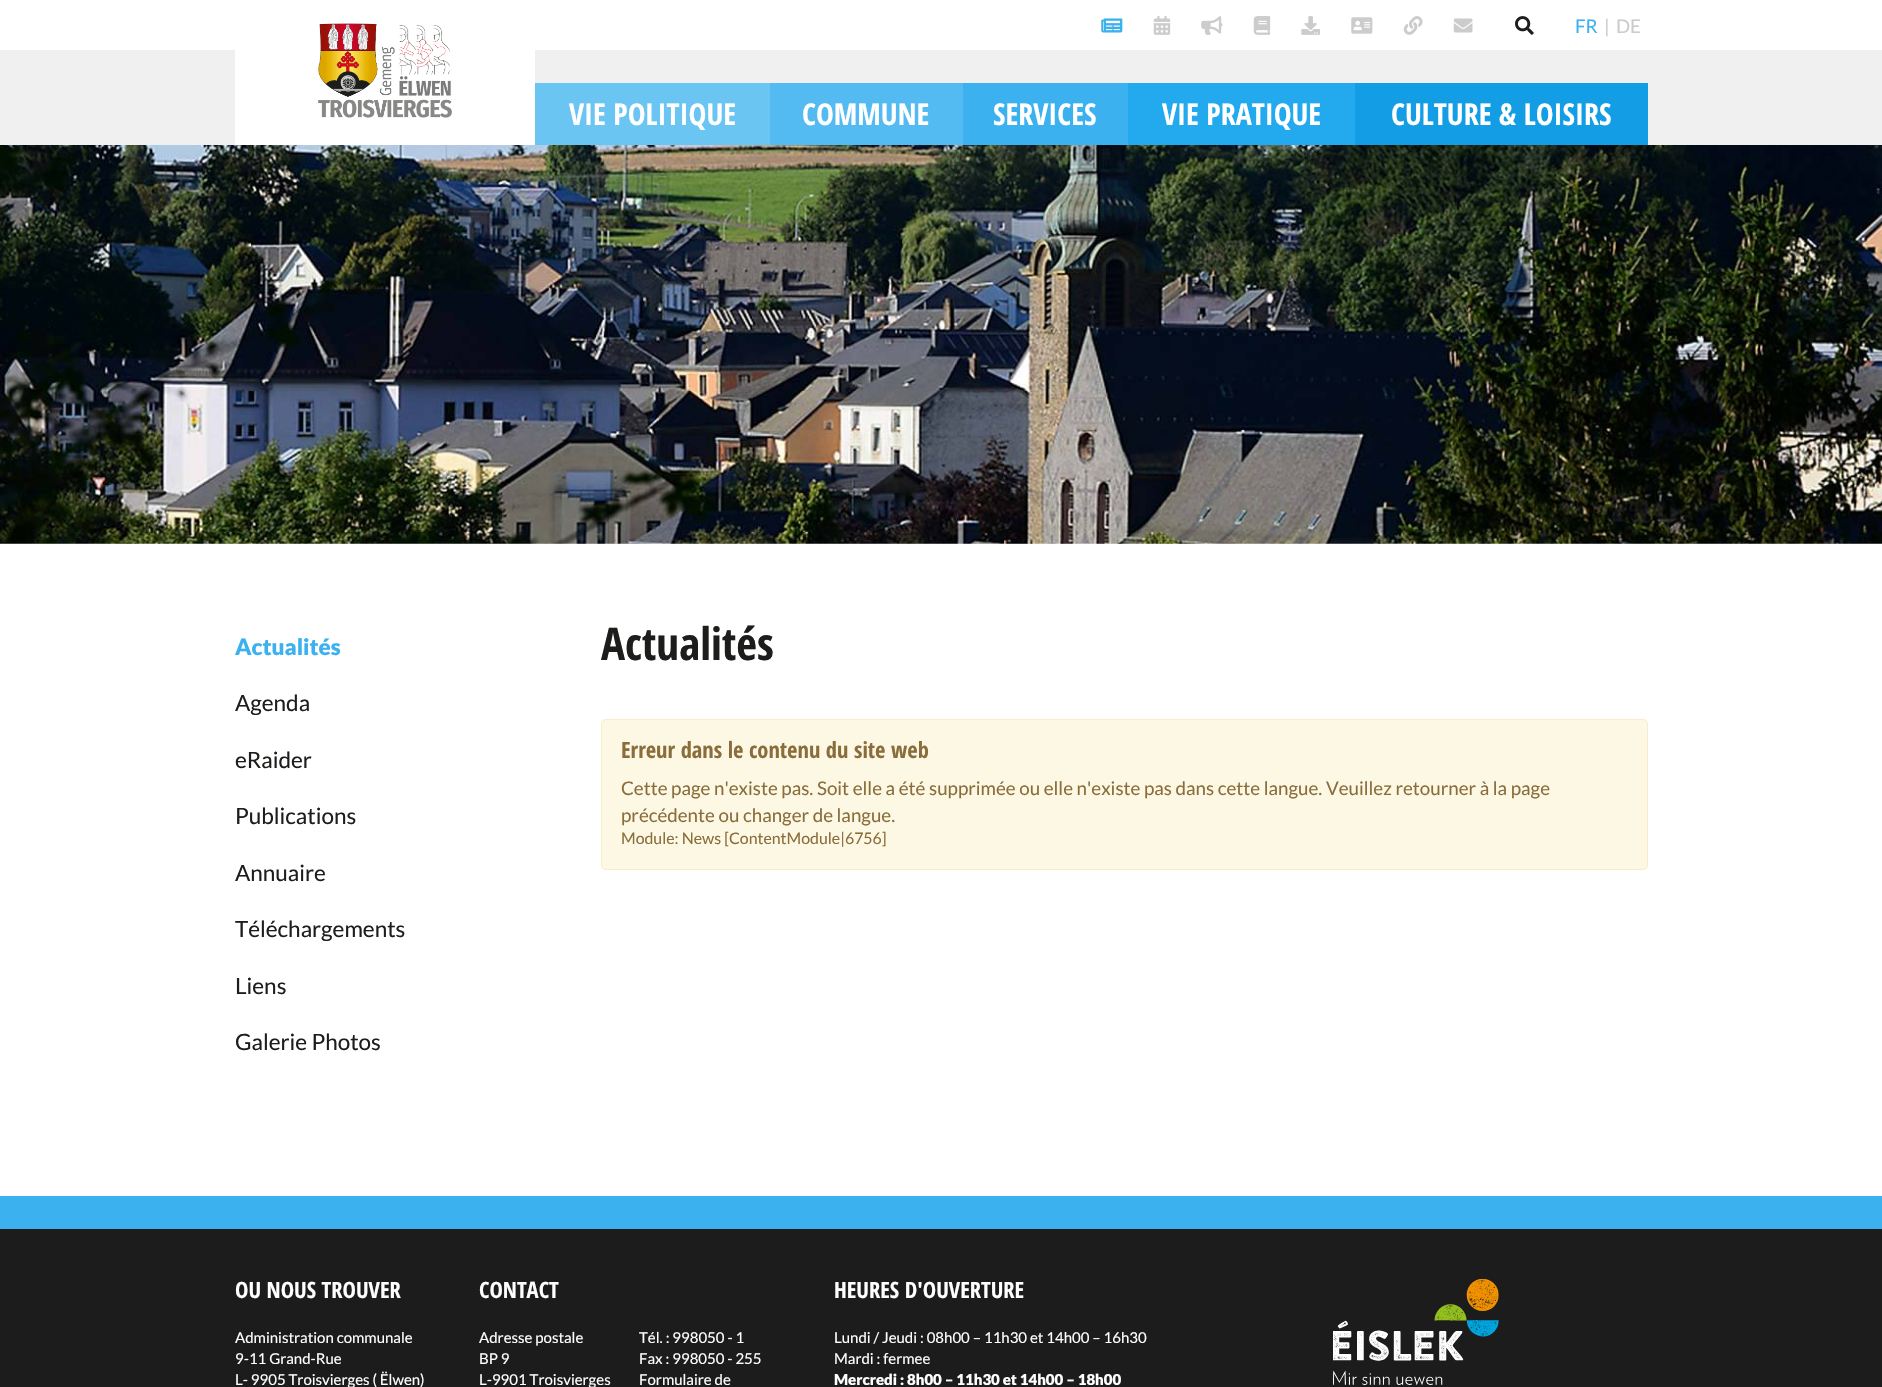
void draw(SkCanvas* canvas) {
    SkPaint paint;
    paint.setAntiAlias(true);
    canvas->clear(0xFFFFFFFF);
    paint.setColor(0xFFF0F0F0);
    canvas->drawRect(SkRect::MakeXYWH(0, 50, 1882, 95), paint);
    canvas->drawImageRect(SkImages::DeferredFromEncodedData(SkData::MakeFromFileName("img1.png")), SkRect::MakeXYWH(1101, 18, 22, 15), SkSamplingOptions());
    canvas->drawImageRect(SkImages::DeferredFromEncodedData(SkData::MakeFromFileName("img2.png")), SkRect::MakeXYWH(1153, 16, 18, 19), SkSamplingOptions());
    canvas->drawImageRect(SkImages::DeferredFromEncodedData(SkData::MakeFromFileName("img3.png")), SkRect::MakeXYWH(1201, 16, 22, 19), SkSamplingOptions());
    canvas->drawImageRect(SkImages::DeferredFromEncodedData(SkData::MakeFromFileName("img4.png")), SkRect::MakeXYWH(1253, 16, 18, 19), SkSamplingOptions());
    canvas->drawImageRect(SkImages::DeferredFromEncodedData(SkData::MakeFromFileName("img5.png")), SkRect::MakeXYWH(1301, 16, 19, 19), SkSamplingOptions());
    canvas->drawImageRect(SkImages::DeferredFromEncodedData(SkData::MakeFromFileName("img6.png")), SkRect::MakeXYWH(1351, 17, 22, 17), SkSamplingOptions());
    canvas->drawImageRect(SkImages::DeferredFromEncodedData(SkData::MakeFromFileName("img7.png")), SkRect::MakeXYWH(1403, 16, 20, 19), SkSamplingOptions());
    canvas->drawImageRect(SkImages::DeferredFromEncodedData(SkData::MakeFromFileName("img8.png")), SkRect::MakeXYWH(1453, 18, 20, 15), SkSamplingOptions());
    canvas->drawImageRect(SkImages::DeferredFromEncodedData(SkData::MakeFromFileName("img9.png")), SkRect::MakeXYWH(1515, 16, 19, 19), SkSamplingOptions());
    SkFont font1(fontMgr->matchFamilyStyle("Lato", SkFontStyle::Normal()), 18.75f);
    font1.setSubpixel(true);
    paint.setColor(0xFF3BB2EF);
    canvas->drawString("FR", 1575, 33, font1, paint);
    paint.setColor(0xFFCCCCCC);
    canvas->drawString("|", 1604, 33, font1, paint);
    canvas->drawString("DE", 1616, 33, font1, paint);
    paint.setColor(0xFFFFFFFF);
    canvas->drawRect(SkRect::MakeXYWH(235, 50, 300, 95), paint);
    canvas->drawImageRect(SkImages::DeferredFromEncodedData(SkData::MakeFromFileName("img10.png")), SkRect::MakeXYWH(318, 23, 134, 95), SkSamplingOptions());
    paint.setColor(0xFF6AC5F3);
    canvas->drawRect(SkRect::MakeXYWH(535, 83, 235, 62), paint);
    SkFont font2(fontMgr->matchFamilyStyle("Open Sans Condensed", SkFontStyle::Bold()), 30);
    font2.setSubpixel(true);
    paint.setColor(0xFFFFFFFF);
    canvas->drawString("VIE POLITIQUE", 569, 125, font2, paint);
    paint.setColor(0xFF53BBF1);
    canvas->drawRect(SkRect::MakeXYWH(770, 83, 193, 62), paint);
    paint.setColor(0xFFFFFFFF);
    canvas->drawString("COMMUNE", 802, 125, font2, paint);
    paint.setColor(0xFF3BB2EF);
    canvas->drawRect(SkRect::MakeXYWH(963, 83, 165, 62), paint);
    paint.setColor(0xFFFFFFFF);
    canvas->drawString("SERVICES", 993, 125, font2, paint);
    paint.setColor(0xFF23A9ED);
    canvas->drawRect(SkRect::MakeXYWH(1128, 83, 227, 62), paint);
    paint.setColor(0xFFFFFFFF);
    canvas->drawString("VIE PRATIQUE", 1162, 125, font2, paint);
    paint.setColor(0xFF139DE4);
    canvas->drawRect(SkRect::MakeXYWH(1355, 83, 293, 62), paint);
    paint.setColor(0xFFFFFFFF);
    canvas->drawString("CULTURE & LOISIRS", 1391, 125, font2, paint);
    canvas->drawImageRect(SkImages::DeferredFromEncodedData(SkData::MakeFromFileName("img11.png")), SkRect::MakeXYWH(0, 145, 1882, 399), SkSamplingOptions());
    SkFont font3(fontMgr->matchFamilyStyle("Lato", SkFontStyle(900, SkFontStyle::kNormal_Width, SkFontStyle::kUpright_Slant)), 22.5f);
    font3.setSubpixel(true);
    paint.setColor(0xFF3BB2EF);
    canvas->drawString("Actualités", 235, 655, font3, paint);
    SkFont font4(fontMgr->matchFamilyStyle("Lato", SkFontStyle::Normal()), 22.5f);
    font4.setSubpixel(true);
    paint.setColor(0xFF1D1D1B);
    canvas->drawString("Agenda", 235, 711, font4, paint);
    canvas->drawString("eRaider", 235, 768, font4, paint);
    canvas->drawString("Publications", 235, 824, font4, paint);
    canvas->drawString("Annuaire", 235, 881, font4, paint);
    canvas->drawString("Téléchargements", 235, 937, font4, paint);
    canvas->drawString("Liens", 235, 994, font4, paint);
    canvas->drawString("Galerie Photos", 235, 1050, font4, paint);
    SkFont font5(fontMgr->matchFamilyStyle("Open Sans Condensed", SkFontStyle::Bold()), 45);
    font5.setSubpixel(true);
    canvas->drawString("Actualités", 601, 660, font5, paint);
    paint.setColor(0xFFFCF8E3);
    canvas->drawRoundRect(SkRect::MakeXYWH(601.5f, 719.5f, 1046, 150), 4.5f, 4.5f, paint);
    paint.setStyle(SkPaint::kStroke_Style);
    paint.setStrokeWidth(1);
    paint.setColor(0xFFFAEBCC);
    canvas->drawRoundRect(SkRect::MakeXYWH(601.5f, 719.5f, 1046, 150), 4.5f, 4.5f, paint);
    SkFont font6(fontMgr->matchFamilyStyle("Open Sans Condensed", SkFontStyle::Bold()), 22.5f);
    font6.setSubpixel(true);
    paint.setStyle(SkPaint::kFill_Style);
    paint.setColor(0xFF8A6D3B);
    canvas->drawString("Erreur dans le contenu du site web", 621, 758, font6, paint);
    canvas->drawString("Cette page n'existe pas. Soit elle a été supprimée ou elle n'existe pas dans cette langue. Veuillez retourner à la page", 621, 795, font1, paint);
    canvas->drawString("précédente ou changer de langue.", 621, 822, font1, paint);
    SkFont font7(fontMgr->matchFamilyStyle("Lato", SkFontStyle::Normal()), 15.9f);
    font7.setSubpixel(true);
    canvas->drawString("Module: News [ContentModule|6756]", 621, 844, font7, paint);
    paint.setColor(0xFF1C1C1C);
    canvas->drawRect(SkRect::MakeXYWH(0, 1229, 1882, 158), paint);
    paint.setColor(0xFF3BB2EF);
    canvas->drawRect(SkRect::MakeXYWH(0, 1196, 1882, 33), paint);
    paint.setColor(0xFFFFFFFF);
    canvas->drawString("OU NOUS TROUVER", 235, 1298, font6, paint);
    SkFont font8(fontMgr->matchFamilyStyle("Lato", SkFontStyle::Normal()), 15);
    font8.setSubpixel(true);
    canvas->drawString("Administration communale", 235, 1343, font8, paint);
    canvas->drawString("9-11 Grand-Rue", 235, 1364, font8, paint);
    canvas->drawString("L- 9905 Troisvierges ( Ëlwen)", 235, 1385, font8, paint);
    canvas->drawString("CONTACT", 479, 1298, font6, paint);
    canvas->drawString("Adresse postale", 479, 1343, font8, paint);
    canvas->drawString("BP 9", 479, 1364, font8, paint);
    canvas->drawString("L-9901 Troisvierges", 479, 1385, font8, paint);
    canvas->drawString("Tél. : 998050 - 1", 639, 1343, font8, paint);
    canvas->drawString("Fax : 998050 - 255", 639, 1364, font8, paint);
    canvas->drawString("Formulaire de", 639, 1385, font8, paint);
    canvas->drawString("HEURES D'OUVERTURE", 834, 1298, font6, paint);
    canvas->drawString("Lundi / Jeudi : 08h00 – 11h30 et 14h00 – 16h30", 834, 1343, font8, paint);
    canvas->drawString("Mardi : fermee", 834, 1364, font8, paint);
    SkFont font9(fontMgr->matchFamilyStyle("Lato", SkFontStyle(900, SkFontStyle::kNormal_Width, SkFontStyle::kUpright_Slant)), 15);
    font9.setSubpixel(true);
    canvas->drawString("Mercredi : 8h00 – 11h30 et 14h00 – 18h00", 834, 1385, font9, paint);
    canvas->drawImageRect(SkImages::DeferredFromEncodedData(SkData::MakeFromFileName("img12.png")), SkRect::MakeXYWH(1333, 1279, 166, 106), SkSamplingOptions());
}
